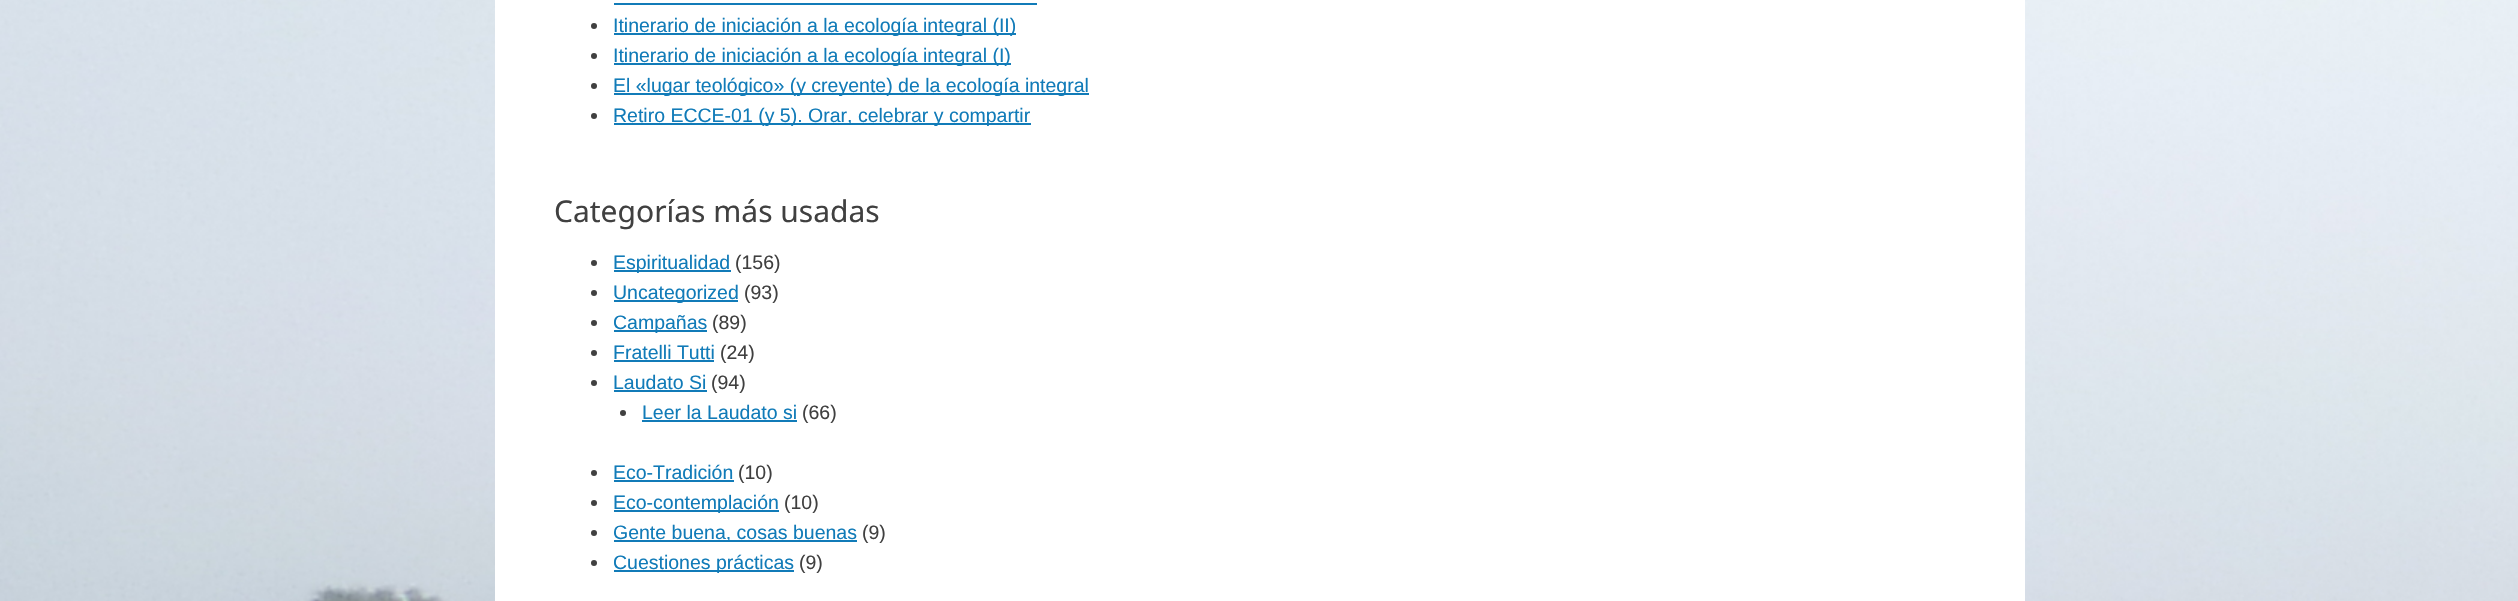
void draw(SkCanvas* canvas) {
    SkPaint paint;
    paint.setAntiAlias(true);
    canvas->clear(0xFFFFFFFF);
    canvas->drawImageRect(SkImages::DeferredFromEncodedData(SkData::MakeFromFileName("img1.png")), SkRect::MakeXYWH(0, 0, 2518, 601), SkSamplingOptions());
    paint.setColor(0xFFFFFFFF);
    canvas->drawRect(SkRect::MakeXYWH(495, 0, 1530, 601), paint);
    paint.setColor(0xFF117BB8);
    canvas->drawRect(SkRect::MakeXYWH(614, 3, 423, 2), paint);
    paint.setColor(0xFF404040);
    canvas->drawCircle(594, 26, 3, paint);
    paint.setColor(0xFF117BB8);
    canvas->drawRect(SkRect::MakeXYWH(614, 33, 402, 2), paint);
    SkFont font1(fontMgr->matchFamilyStyle("Arimo", SkFontStyle::Normal()), 19.5f);
    font1.setSubpixel(true);
    canvas->drawString("Itinerario de iniciación a la ecología integral (II)", 613, 32, font1, paint);
    paint.setColor(0xFF404040);
    canvas->drawCircle(594, 56, 3, paint);
    paint.setColor(0xFF117BB8);
    canvas->drawRect(SkRect::MakeXYWH(614, 63, 397, 2), paint);
    canvas->drawString("Itinerario de iniciación a la ecología integral (I)", 613, 62, font1, paint);
    paint.setColor(0xFF404040);
    canvas->drawCircle(594, 86, 3, paint);
    paint.setColor(0xFF117BB8);
    canvas->drawRect(SkRect::MakeXYWH(614, 93, 475, 2), paint);
    canvas->drawString("El «lugar teológico» (y creyente) de la ecología integral", 613, 92, font1, paint);
    paint.setColor(0xFF404040);
    canvas->drawCircle(594, 116, 3, paint);
    paint.setColor(0xFF117BB8);
    canvas->drawRect(SkRect::MakeXYWH(614, 123, 417, 2), paint);
    canvas->drawString("Retiro ECCE-01 (y 5). Orar, celebrar y compartir", 613, 122, font1, paint);
    SkFont font2(fontMgr->matchFamilyStyle("Noto Sans", SkFontStyle::Normal()), 30);
    font2.setSubpixel(true);
    paint.setColor(0xFF404040);
    canvas->drawString("Categorías más usadas", 554, 222, font2, paint);
    canvas->drawCircle(594, 263, 3, paint);
    paint.setColor(0xFF117BB8);
    canvas->drawRect(SkRect::MakeXYWH(614, 270, 117, 2), paint);
    canvas->drawString("Espiritualidad", 613, 269, font1, paint);
    paint.setColor(0xFF404040);
    canvas->drawString("(156)", 735, 269, font1, paint);
    canvas->drawCircle(594, 293, 3, paint);
    paint.setColor(0xFF117BB8);
    canvas->drawRect(SkRect::MakeXYWH(614, 300, 124, 2), paint);
    canvas->drawString("Uncategorized", 613, 299, font1, paint);
    paint.setColor(0xFF404040);
    canvas->drawString("(93)", 744, 299, font1, paint);
    canvas->drawCircle(594, 323, 3, paint);
    paint.setColor(0xFF117BB8);
    canvas->drawRect(SkRect::MakeXYWH(614, 330, 93, 2), paint);
    canvas->drawString("Campañas", 613, 329, font1, paint);
    paint.setColor(0xFF404040);
    canvas->drawString("(89)", 712, 329, font1, paint);
    canvas->drawCircle(594, 353, 3, paint);
    paint.setColor(0xFF117BB8);
    canvas->drawString("Fratelli Tutti", 613, 359, font1, paint);
    canvas->drawRect(SkRect::MakeXYWH(614, 360, 100, 2), paint);
    paint.setColor(0xFF404040);
    canvas->drawString("(24)", 720, 359, font1, paint);
    canvas->drawCircle(594, 383, 3, paint);
    paint.setColor(0xFF117BB8);
    canvas->drawString("Laudato Si", 613, 389, font1, paint);
    canvas->drawRect(SkRect::MakeXYWH(614, 390, 93, 2), paint);
    paint.setColor(0xFF404040);
    canvas->drawString("(94)", 711, 389, font1, paint);
    canvas->drawCircle(623, 413, 3, paint);
    paint.setColor(0xFF117BB8);
    canvas->drawString("Leer la Laudato si", 642, 419, font1, paint);
    canvas->drawRect(SkRect::MakeXYWH(642, 420, 155, 2), paint);
    paint.setColor(0xFF404040);
    canvas->drawString("(66)", 802, 419, font1, paint);
    canvas->drawCircle(594, 473, 3, paint);
    paint.setColor(0xFF117BB8);
    canvas->drawString("Eco-Tradición", 613, 479, font1, paint);
    canvas->drawRect(SkRect::MakeXYWH(614, 480, 120, 2), paint);
    paint.setColor(0xFF404040);
    canvas->drawString("(10)", 738, 479, font1, paint);
    canvas->drawCircle(594, 503, 3, paint);
    paint.setColor(0xFF117BB8);
    canvas->drawRect(SkRect::MakeXYWH(614, 510, 165, 2), paint);
    canvas->drawString("Eco-contemplación", 613, 509, font1, paint);
    paint.setColor(0xFF404040);
    canvas->drawString("(10)", 784, 509, font1, paint);
    canvas->drawCircle(594, 533, 3, paint);
    paint.setColor(0xFF117BB8);
    canvas->drawRect(SkRect::MakeXYWH(614, 540, 243, 2), paint);
    canvas->drawString("Gente buena, cosas buenas", 613, 539, font1, paint);
    paint.setColor(0xFF404040);
    canvas->drawString("(9)", 862, 539, font1, paint);
    canvas->drawCircle(594, 563, 3, paint);
    paint.setColor(0xFF117BB8);
    canvas->drawRect(SkRect::MakeXYWH(614, 570, 180, 2), paint);
    canvas->drawString("Cuestiones prácticas", 613, 569, font1, paint);
    paint.setColor(0xFF404040);
    canvas->drawString("(9)", 799, 569, font1, paint);
}
